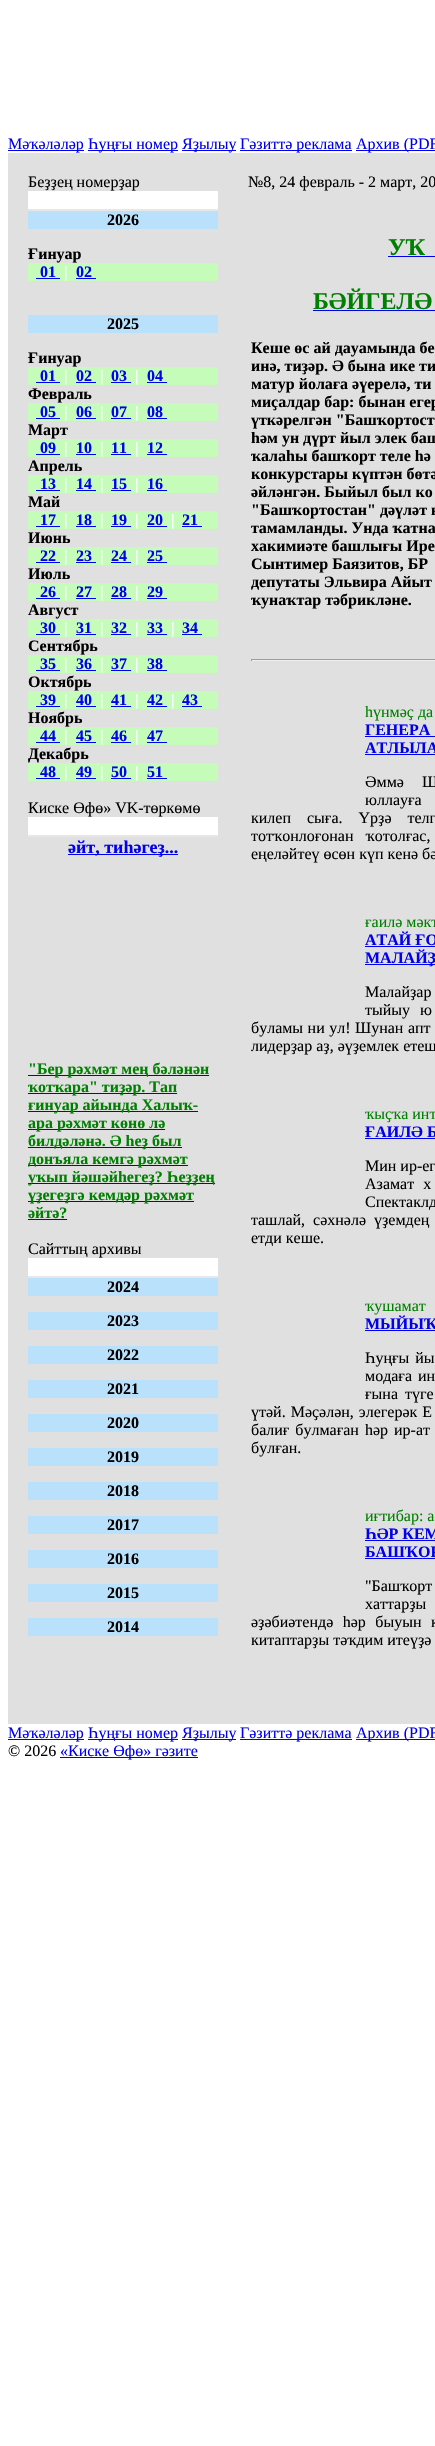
void draw(SkCanvas* canvas) {
    SkPaint paint;
    paint.setAntiAlias(true);
    auto spacedText = [&](const char* s, float x, float y, const SkFont& font, const SkPaint& ink, float letter, float word) {
        std::vector<SkGlyphID> glyphs(font.countText(s, strlen(s), SkTextEncoding::kUTF8));
        std::vector<float> xs(glyphs.size());
        font.textToGlyphs(s, strlen(s), SkTextEncoding::kUTF8, glyphs);
        font.getXPos(glyphs, xs, x);
        float extra = 0;
        for (size_t i = 0; i < glyphs.size(); i++) {
            xs[i] += extra;
            extra += letter + word * (glyphs[i] == font.unicharToGlyph(' '));
        }
        canvas->drawTextBlob(SkTextBlob::MakeFromPosHGlyphs(glyphs, xs, y, font), 0, 0, ink);
    };
    canvas->clear(0xFFFFFFFF);
    paint.setColor(0xFF0000EE);
    canvas->drawRect(SkRect::MakeXYWH(8, 150, 76, 1), paint);
    SkFont font1(fontMgr->matchFamilyStyle("Liberation Serif", SkFontStyle::Normal()), 16);
    font1.setSubpixel(true);
    canvas->drawString("Мәҡәләләр", 8, 149, font1, paint);
    canvas->drawRect(SkRect::MakeXYWH(88, 150, 90, 1), paint);
    canvas->drawString("Һуңғы номер", 88, 149, font1, paint);
    canvas->drawRect(SkRect::MakeXYWH(182, 150, 54, 1), paint);
    canvas->drawString("Яҙылыу", 182, 149, font1, paint);
    canvas->drawRect(SkRect::MakeXYWH(240, 150, 112, 1), paint);
    canvas->drawString("Гәзиттә реклама", 240, 149, font1, paint);
    canvas->drawRect(SkRect::MakeXYWH(356, 150, 79, 1), paint);
    canvas->drawString("Архив (PDF", 356, 149, font1, paint);
    paint.setColor(0xFFE0E0E0);
    canvas->drawRect(SkRect::MakeXYWH(8, 153, 427, 1571), paint);
    paint.setColor(0xFF000000);
    canvas->drawString("Беҙҙең номерҙар", 28, 187, font1, paint);
    paint.setColor(0xFFFFFFFF);
    canvas->drawRect(SkRect::MakeXYWH(28, 191, 190, 18), paint);
    paint.setColor(0xFFE7E7E7);
    canvas->drawRect(SkRect::MakeXYWH(28, 209, 190, 2), paint);
    paint.setColor(0xFFBAE1FC);
    canvas->drawRect(SkRect::MakeXYWH(28, 211, 190, 18), paint);
    SkFont font2(fontMgr->matchFamilyStyle("Liberation Serif", SkFontStyle::Bold()), 16);
    font2.setSubpixel(true);
    paint.setColor(0xFF000000);
    canvas->drawString("2026", 107, 225, font2, paint);
    canvas->drawString("Ғинуар", 28, 259, font2, paint);
    paint.setColor(0xFFC6FCBA);
    canvas->drawRect(SkRect::MakeXYWH(28, 263, 190, 18), paint);
    paint.setColor(0xFF0000EE);
    canvas->drawString("01", 40, 277, font2, paint);
    canvas->drawRect(SkRect::MakeXYWH(36, 278, 24, 1), paint);
    paint.setColor(0xFFFFFFFF);
    canvas->drawString("|", 64, 277, font2, paint);
    paint.setColor(0xFF0000EE);
    canvas->drawString("02", 76, 277, font2, paint);
    canvas->drawRect(SkRect::MakeXYWH(76, 278, 20, 1), paint);
    paint.setColor(0xFFBAE1FC);
    canvas->drawRect(SkRect::MakeXYWH(28, 315, 190, 18), paint);
    paint.setColor(0xFF000000);
    canvas->drawString("2025", 107, 329, font2, paint);
    canvas->drawString("Ғинуар", 28, 363, font2, paint);
    paint.setColor(0xFFC6FCBA);
    canvas->drawRect(SkRect::MakeXYWH(28, 367, 190, 18), paint);
    paint.setColor(0xFF0000EE);
    canvas->drawString("01", 40, 381, font2, paint);
    canvas->drawRect(SkRect::MakeXYWH(36, 382, 24, 1), paint);
    paint.setColor(0xFFFFFFFF);
    canvas->drawString("|", 64, 381, font2, paint);
    paint.setColor(0xFF0000EE);
    canvas->drawString("02", 76, 381, font2, paint);
    canvas->drawRect(SkRect::MakeXYWH(76, 382, 20, 1), paint);
    paint.setColor(0xFFFFFFFF);
    canvas->drawString("|", 100, 381, font2, paint);
    paint.setColor(0xFF0000EE);
    canvas->drawString("03", 111, 381, font2, paint);
    canvas->drawRect(SkRect::MakeXYWH(111, 382, 20, 1), paint);
    paint.setColor(0xFFFFFFFF);
    canvas->drawString("|", 135, 381, font2, paint);
    paint.setColor(0xFF0000EE);
    canvas->drawString("04", 147, 381, font2, paint);
    canvas->drawRect(SkRect::MakeXYWH(147, 382, 20, 1), paint);
    paint.setColor(0xFF000000);
    canvas->drawString("Февраль", 28, 399, font2, paint);
    paint.setColor(0xFFC6FCBA);
    canvas->drawRect(SkRect::MakeXYWH(28, 403, 190, 18), paint);
    paint.setColor(0xFF0000EE);
    canvas->drawString("05", 40, 417, font2, paint);
    canvas->drawRect(SkRect::MakeXYWH(36, 418, 24, 1), paint);
    paint.setColor(0xFFFFFFFF);
    canvas->drawString("|", 64, 417, font2, paint);
    paint.setColor(0xFF0000EE);
    canvas->drawString("06", 76, 417, font2, paint);
    canvas->drawRect(SkRect::MakeXYWH(76, 418, 20, 1), paint);
    paint.setColor(0xFFFFFFFF);
    canvas->drawString("|", 100, 417, font2, paint);
    paint.setColor(0xFF0000EE);
    canvas->drawString("07", 111, 417, font2, paint);
    canvas->drawRect(SkRect::MakeXYWH(111, 418, 20, 1), paint);
    paint.setColor(0xFFFFFFFF);
    canvas->drawString("|", 135, 417, font2, paint);
    paint.setColor(0xFF0000EE);
    canvas->drawString("08", 147, 417, font2, paint);
    canvas->drawRect(SkRect::MakeXYWH(147, 418, 20, 1), paint);
    paint.setColor(0xFF000000);
    canvas->drawString("Март", 28, 435, font2, paint);
    paint.setColor(0xFFC6FCBA);
    canvas->drawRect(SkRect::MakeXYWH(28, 439, 190, 18), paint);
    paint.setColor(0xFF0000EE);
    canvas->drawString("09", 40, 453, font2, paint);
    canvas->drawRect(SkRect::MakeXYWH(36, 454, 24, 1), paint);
    paint.setColor(0xFFFFFFFF);
    canvas->drawString("|", 64, 453, font2, paint);
    paint.setColor(0xFF0000EE);
    canvas->drawString("10", 76, 453, font2, paint);
    canvas->drawRect(SkRect::MakeXYWH(76, 454, 20, 1), paint);
    paint.setColor(0xFFFFFFFF);
    canvas->drawString("|", 100, 453, font2, paint);
    paint.setColor(0xFF0000EE);
    canvas->drawString("11", 111, 453, font2, paint);
    canvas->drawRect(SkRect::MakeXYWH(111, 454, 20, 1), paint);
    paint.setColor(0xFFFFFFFF);
    canvas->drawString("|", 135, 453, font2, paint);
    paint.setColor(0xFF0000EE);
    canvas->drawString("12", 147, 453, font2, paint);
    canvas->drawRect(SkRect::MakeXYWH(147, 454, 20, 1), paint);
    paint.setColor(0xFF000000);
    canvas->drawString("Апрель", 28, 471, font2, paint);
    paint.setColor(0xFFC6FCBA);
    canvas->drawRect(SkRect::MakeXYWH(28, 475, 190, 18), paint);
    paint.setColor(0xFF0000EE);
    canvas->drawString("13", 40, 489, font2, paint);
    canvas->drawRect(SkRect::MakeXYWH(36, 490, 24, 1), paint);
    paint.setColor(0xFFFFFFFF);
    canvas->drawString("|", 64, 489, font2, paint);
    paint.setColor(0xFF0000EE);
    canvas->drawString("14", 76, 489, font2, paint);
    canvas->drawRect(SkRect::MakeXYWH(76, 490, 20, 1), paint);
    paint.setColor(0xFFFFFFFF);
    canvas->drawString("|", 100, 489, font2, paint);
    paint.setColor(0xFF0000EE);
    canvas->drawString("15", 111, 489, font2, paint);
    canvas->drawRect(SkRect::MakeXYWH(111, 490, 20, 1), paint);
    paint.setColor(0xFFFFFFFF);
    canvas->drawString("|", 135, 489, font2, paint);
    paint.setColor(0xFF0000EE);
    canvas->drawString("16", 147, 489, font2, paint);
    canvas->drawRect(SkRect::MakeXYWH(147, 490, 20, 1), paint);
    paint.setColor(0xFF000000);
    canvas->drawString("Май", 28, 507, font2, paint);
    paint.setColor(0xFFC6FCBA);
    canvas->drawRect(SkRect::MakeXYWH(28, 511, 190, 18), paint);
    paint.setColor(0xFF0000EE);
    canvas->drawString("17", 40, 525, font2, paint);
    canvas->drawRect(SkRect::MakeXYWH(36, 526, 24, 1), paint);
    paint.setColor(0xFFFFFFFF);
    canvas->drawString("|", 64, 525, font2, paint);
    paint.setColor(0xFF0000EE);
    canvas->drawString("18", 76, 525, font2, paint);
    canvas->drawRect(SkRect::MakeXYWH(76, 526, 20, 1), paint);
    paint.setColor(0xFFFFFFFF);
    canvas->drawString("|", 100, 525, font2, paint);
    paint.setColor(0xFF0000EE);
    canvas->drawString("19", 111, 525, font2, paint);
    canvas->drawRect(SkRect::MakeXYWH(111, 526, 20, 1), paint);
    paint.setColor(0xFFFFFFFF);
    canvas->drawString("|", 135, 525, font2, paint);
    paint.setColor(0xFF0000EE);
    canvas->drawString("20", 147, 525, font2, paint);
    canvas->drawRect(SkRect::MakeXYWH(147, 526, 20, 1), paint);
    paint.setColor(0xFFFFFFFF);
    canvas->drawString("|", 171, 525, font2, paint);
    paint.setColor(0xFF0000EE);
    canvas->drawString("21", 182, 525, font2, paint);
    canvas->drawRect(SkRect::MakeXYWH(182, 526, 20, 1), paint);
    paint.setColor(0xFF000000);
    canvas->drawString("Июнь", 28, 543, font2, paint);
    paint.setColor(0xFFC6FCBA);
    canvas->drawRect(SkRect::MakeXYWH(28, 547, 190, 18), paint);
    paint.setColor(0xFF0000EE);
    canvas->drawString("22", 40, 561, font2, paint);
    canvas->drawRect(SkRect::MakeXYWH(36, 562, 24, 1), paint);
    paint.setColor(0xFFFFFFFF);
    canvas->drawString("|", 64, 561, font2, paint);
    paint.setColor(0xFF0000EE);
    canvas->drawString("23", 76, 561, font2, paint);
    canvas->drawRect(SkRect::MakeXYWH(76, 562, 20, 1), paint);
    paint.setColor(0xFFFFFFFF);
    canvas->drawString("|", 100, 561, font2, paint);
    paint.setColor(0xFF0000EE);
    canvas->drawString("24", 111, 561, font2, paint);
    canvas->drawRect(SkRect::MakeXYWH(111, 562, 20, 1), paint);
    paint.setColor(0xFFFFFFFF);
    canvas->drawString("|", 135, 561, font2, paint);
    paint.setColor(0xFF0000EE);
    canvas->drawString("25", 147, 561, font2, paint);
    canvas->drawRect(SkRect::MakeXYWH(147, 562, 20, 1), paint);
    paint.setColor(0xFF000000);
    canvas->drawString("Июль", 28, 579, font2, paint);
    paint.setColor(0xFFC6FCBA);
    canvas->drawRect(SkRect::MakeXYWH(28, 583, 190, 18), paint);
    paint.setColor(0xFF0000EE);
    canvas->drawString("26", 40, 597, font2, paint);
    canvas->drawRect(SkRect::MakeXYWH(36, 598, 24, 1), paint);
    paint.setColor(0xFFFFFFFF);
    canvas->drawString("|", 64, 597, font2, paint);
    paint.setColor(0xFF0000EE);
    canvas->drawString("27", 76, 597, font2, paint);
    canvas->drawRect(SkRect::MakeXYWH(76, 598, 20, 1), paint);
    paint.setColor(0xFFFFFFFF);
    canvas->drawString("|", 100, 597, font2, paint);
    paint.setColor(0xFF0000EE);
    canvas->drawString("28", 111, 597, font2, paint);
    canvas->drawRect(SkRect::MakeXYWH(111, 598, 20, 1), paint);
    paint.setColor(0xFFFFFFFF);
    canvas->drawString("|", 135, 597, font2, paint);
    paint.setColor(0xFF0000EE);
    canvas->drawString("29", 147, 597, font2, paint);
    canvas->drawRect(SkRect::MakeXYWH(147, 598, 20, 1), paint);
    paint.setColor(0xFF000000);
    canvas->drawString("Август", 28, 615, font2, paint);
    paint.setColor(0xFFC6FCBA);
    canvas->drawRect(SkRect::MakeXYWH(28, 619, 190, 18), paint);
    paint.setColor(0xFF0000EE);
    canvas->drawString("30", 40, 633, font2, paint);
    canvas->drawRect(SkRect::MakeXYWH(36, 634, 24, 1), paint);
    paint.setColor(0xFFFFFFFF);
    canvas->drawString("|", 64, 633, font2, paint);
    paint.setColor(0xFF0000EE);
    canvas->drawString("31", 76, 633, font2, paint);
    canvas->drawRect(SkRect::MakeXYWH(76, 634, 20, 1), paint);
    paint.setColor(0xFFFFFFFF);
    canvas->drawString("|", 100, 633, font2, paint);
    paint.setColor(0xFF0000EE);
    canvas->drawString("32", 111, 633, font2, paint);
    canvas->drawRect(SkRect::MakeXYWH(111, 634, 20, 1), paint);
    paint.setColor(0xFFFFFFFF);
    canvas->drawString("|", 135, 633, font2, paint);
    paint.setColor(0xFF0000EE);
    canvas->drawString("33", 147, 633, font2, paint);
    canvas->drawRect(SkRect::MakeXYWH(147, 634, 20, 1), paint);
    paint.setColor(0xFFFFFFFF);
    canvas->drawString("|", 171, 633, font2, paint);
    paint.setColor(0xFF0000EE);
    canvas->drawString("34", 182, 633, font2, paint);
    canvas->drawRect(SkRect::MakeXYWH(182, 634, 20, 1), paint);
    paint.setColor(0xFF000000);
    canvas->drawString("Сентябрь", 28, 651, font2, paint);
    paint.setColor(0xFFC6FCBA);
    canvas->drawRect(SkRect::MakeXYWH(28, 655, 190, 18), paint);
    paint.setColor(0xFF0000EE);
    canvas->drawString("35", 40, 669, font2, paint);
    canvas->drawRect(SkRect::MakeXYWH(36, 670, 24, 1), paint);
    paint.setColor(0xFFFFFFFF);
    canvas->drawString("|", 64, 669, font2, paint);
    paint.setColor(0xFF0000EE);
    canvas->drawString("36", 76, 669, font2, paint);
    canvas->drawRect(SkRect::MakeXYWH(76, 670, 20, 1), paint);
    paint.setColor(0xFFFFFFFF);
    canvas->drawString("|", 100, 669, font2, paint);
    paint.setColor(0xFF0000EE);
    canvas->drawString("37", 111, 669, font2, paint);
    canvas->drawRect(SkRect::MakeXYWH(111, 670, 20, 1), paint);
    paint.setColor(0xFFFFFFFF);
    canvas->drawString("|", 135, 669, font2, paint);
    paint.setColor(0xFF0000EE);
    canvas->drawString("38", 147, 669, font2, paint);
    canvas->drawRect(SkRect::MakeXYWH(147, 670, 20, 1), paint);
    paint.setColor(0xFF000000);
    canvas->drawString("Октябрь", 28, 687, font2, paint);
    paint.setColor(0xFFC6FCBA);
    canvas->drawRect(SkRect::MakeXYWH(28, 691, 190, 18), paint);
    paint.setColor(0xFF0000EE);
    canvas->drawString("39", 40, 705, font2, paint);
    canvas->drawRect(SkRect::MakeXYWH(36, 706, 24, 1), paint);
    paint.setColor(0xFFFFFFFF);
    canvas->drawString("|", 64, 705, font2, paint);
    paint.setColor(0xFF0000EE);
    canvas->drawString("40", 76, 705, font2, paint);
    canvas->drawRect(SkRect::MakeXYWH(76, 706, 20, 1), paint);
    paint.setColor(0xFFFFFFFF);
    canvas->drawString("|", 100, 705, font2, paint);
    paint.setColor(0xFF0000EE);
    canvas->drawString("41", 111, 705, font2, paint);
    canvas->drawRect(SkRect::MakeXYWH(111, 706, 20, 1), paint);
    paint.setColor(0xFFFFFFFF);
    canvas->drawString("|", 135, 705, font2, paint);
    paint.setColor(0xFF0000EE);
    canvas->drawString("42", 147, 705, font2, paint);
    canvas->drawRect(SkRect::MakeXYWH(147, 706, 20, 1), paint);
    paint.setColor(0xFFFFFFFF);
    canvas->drawString("|", 171, 705, font2, paint);
    paint.setColor(0xFF0000EE);
    canvas->drawString("43", 182, 705, font2, paint);
    canvas->drawRect(SkRect::MakeXYWH(182, 706, 20, 1), paint);
    paint.setColor(0xFF000000);
    canvas->drawString("Ноябрь", 28, 723, font2, paint);
    paint.setColor(0xFFC6FCBA);
    canvas->drawRect(SkRect::MakeXYWH(28, 727, 190, 18), paint);
    paint.setColor(0xFF0000EE);
    canvas->drawString("44", 40, 741, font2, paint);
    canvas->drawRect(SkRect::MakeXYWH(36, 742, 24, 1), paint);
    paint.setColor(0xFFFFFFFF);
    canvas->drawString("|", 64, 741, font2, paint);
    paint.setColor(0xFF0000EE);
    canvas->drawString("45", 76, 741, font2, paint);
    canvas->drawRect(SkRect::MakeXYWH(76, 742, 20, 1), paint);
    paint.setColor(0xFFFFFFFF);
    canvas->drawString("|", 100, 741, font2, paint);
    paint.setColor(0xFF0000EE);
    canvas->drawString("46", 111, 741, font2, paint);
    canvas->drawRect(SkRect::MakeXYWH(111, 742, 20, 1), paint);
    paint.setColor(0xFFFFFFFF);
    canvas->drawString("|", 135, 741, font2, paint);
    paint.setColor(0xFF0000EE);
    canvas->drawString("47", 147, 741, font2, paint);
    canvas->drawRect(SkRect::MakeXYWH(147, 742, 20, 1), paint);
    paint.setColor(0xFF000000);
    canvas->drawString("Декабрь", 28, 759, font2, paint);
    paint.setColor(0xFFC6FCBA);
    canvas->drawRect(SkRect::MakeXYWH(28, 763, 190, 18), paint);
    paint.setColor(0xFF0000EE);
    canvas->drawString("48", 40, 777, font2, paint);
    canvas->drawRect(SkRect::MakeXYWH(36, 778, 24, 1), paint);
    paint.setColor(0xFFFFFFFF);
    canvas->drawString("|", 64, 777, font2, paint);
    paint.setColor(0xFF0000EE);
    canvas->drawString("49", 76, 777, font2, paint);
    canvas->drawRect(SkRect::MakeXYWH(76, 778, 20, 1), paint);
    paint.setColor(0xFFFFFFFF);
    canvas->drawString("|", 100, 777, font2, paint);
    paint.setColor(0xFF0000EE);
    canvas->drawString("50", 111, 777, font2, paint);
    canvas->drawRect(SkRect::MakeXYWH(111, 778, 20, 1), paint);
    paint.setColor(0xFFFFFFFF);
    canvas->drawString("|", 135, 777, font2, paint);
    paint.setColor(0xFF0000EE);
    canvas->drawString("51", 147, 777, font2, paint);
    canvas->drawRect(SkRect::MakeXYWH(147, 778, 20, 1), paint);
    paint.setColor(0xFF000000);
    canvas->drawString("Киске Өфө» VK-төркөмө", 28, 813, font1, paint);
    paint.setColor(0xFFFFFFFF);
    canvas->drawRect(SkRect::MakeXYWH(28, 817, 190, 18), paint);
    paint.setColor(0xFFE7E7E7);
    canvas->drawRect(SkRect::MakeXYWH(28, 835, 190, 2), paint);
    paint.setColor(0xFF0000EE);
    canvas->drawRect(SkRect::MakeXYWH(68, 854, 110, 1), paint);
    SkFont font3(fontMgr->matchFamilyStyle("Liberation Serif", SkFontStyle::Bold()), 18);
    font3.setSubpixel(true);
    canvas->drawString("әйт, тиһәгеҙ...", 68, 853, font3, paint);
    canvas->drawRect(SkRect::MakeXYWH(28, 1075, 181, 1), paint);
    paint.setColor(0xFF008000);
    canvas->drawString("\"Бер рәхмәт мең бәләнән", 28, 1074, font2, paint);
    paint.setColor(0xFF0000EE);
    canvas->drawRect(SkRect::MakeXYWH(28, 1093, 149, 1), paint);
    paint.setColor(0xFF008000);
    canvas->drawString("ҡотҡара\" тиҙәр. Тап", 28, 1092, font2, paint);
    paint.setColor(0xFF0000EE);
    canvas->drawRect(SkRect::MakeXYWH(28, 1111, 170, 1), paint);
    paint.setColor(0xFF008000);
    canvas->drawString("ғинуар айында Халыҡ-", 28, 1110, font2, paint);
    paint.setColor(0xFF0000EE);
    canvas->drawRect(SkRect::MakeXYWH(28, 1129, 137, 1), paint);
    paint.setColor(0xFF008000);
    canvas->drawString("ара рәхмәт көнө лә", 28, 1128, font2, paint);
    paint.setColor(0xFF0000EE);
    canvas->drawRect(SkRect::MakeXYWH(28, 1147, 154, 1), paint);
    paint.setColor(0xFF008000);
    canvas->drawString("билдәләнә. Ә һеҙ был", 28, 1146, font2, paint);
    paint.setColor(0xFF0000EE);
    canvas->drawRect(SkRect::MakeXYWH(28, 1165, 160, 1), paint);
    paint.setColor(0xFF008000);
    canvas->drawString("донъяла кемгә рәхмәт", 28, 1164, font2, paint);
    paint.setColor(0xFF0000EE);
    canvas->drawRect(SkRect::MakeXYWH(28, 1183, 187, 1), paint);
    paint.setColor(0xFF008000);
    canvas->drawString("уҡып йәшәйһегеҙ? Һеҙҙең", 28, 1182, font2, paint);
    paint.setColor(0xFF0000EE);
    canvas->drawRect(SkRect::MakeXYWH(28, 1201, 166, 1), paint);
    paint.setColor(0xFF008000);
    canvas->drawString("үҙегеҙгә кемдәр рәхмәт", 28, 1200, font2, paint);
    canvas->drawString("әйтә?", 28, 1218, font2, paint);
    paint.setColor(0xFF0000EE);
    canvas->drawRect(SkRect::MakeXYWH(28, 1219, 39, 1), paint);
    paint.setColor(0xFF000000);
    canvas->drawString("Сайттың архивы", 28, 1254, font1, paint);
    paint.setColor(0xFFFFFFFF);
    canvas->drawRect(SkRect::MakeXYWH(28, 1258, 190, 18), paint);
    paint.setColor(0xFFE7E7E7);
    canvas->drawRect(SkRect::MakeXYWH(28, 1276, 190, 2), paint);
    paint.setColor(0xFFBAE1FC);
    canvas->drawRect(SkRect::MakeXYWH(28, 1278, 190, 18), paint);
    paint.setColor(0xFF000000);
    canvas->drawString("2024", 107, 1292, font2, paint);
    paint.setColor(0xFFBAE1FC);
    canvas->drawRect(SkRect::MakeXYWH(28, 1312, 190, 18), paint);
    paint.setColor(0xFF000000);
    canvas->drawString("2023", 107, 1326, font2, paint);
    paint.setColor(0xFFBAE1FC);
    canvas->drawRect(SkRect::MakeXYWH(28, 1346, 190, 18), paint);
    paint.setColor(0xFF000000);
    canvas->drawString("2022", 107, 1360, font2, paint);
    paint.setColor(0xFFBAE1FC);
    canvas->drawRect(SkRect::MakeXYWH(28, 1380, 190, 18), paint);
    paint.setColor(0xFF000000);
    canvas->drawString("2021", 107, 1394, font2, paint);
    paint.setColor(0xFFBAE1FC);
    canvas->drawRect(SkRect::MakeXYWH(28, 1414, 190, 18), paint);
    paint.setColor(0xFF000000);
    canvas->drawString("2020", 107, 1428, font2, paint);
    paint.setColor(0xFFBAE1FC);
    canvas->drawRect(SkRect::MakeXYWH(28, 1448, 190, 18), paint);
    paint.setColor(0xFF000000);
    canvas->drawString("2019", 107, 1462, font2, paint);
    paint.setColor(0xFFBAE1FC);
    canvas->drawRect(SkRect::MakeXYWH(28, 1482, 190, 18), paint);
    paint.setColor(0xFF000000);
    canvas->drawString("2018", 107, 1496, font2, paint);
    paint.setColor(0xFFBAE1FC);
    canvas->drawRect(SkRect::MakeXYWH(28, 1516, 190, 18), paint);
    paint.setColor(0xFF000000);
    canvas->drawString("2017", 107, 1530, font2, paint);
    paint.setColor(0xFFBAE1FC);
    canvas->drawRect(SkRect::MakeXYWH(28, 1550, 190, 18), paint);
    paint.setColor(0xFF000000);
    canvas->drawString("2016", 107, 1564, font2, paint);
    paint.setColor(0xFFBAE1FC);
    canvas->drawRect(SkRect::MakeXYWH(28, 1584, 190, 18), paint);
    paint.setColor(0xFF000000);
    canvas->drawString("2015", 107, 1598, font2, paint);
    paint.setColor(0xFFBAE1FC);
    canvas->drawRect(SkRect::MakeXYWH(28, 1618, 190, 18), paint);
    paint.setColor(0xFF000000);
    canvas->drawString("2014", 107, 1632, font2, paint);
    canvas->drawString("№8, 24 февраль - 2 март, 20", 248, 187, font1, paint);
    SkFont font4(fontMgr->matchFamilyStyle("Liberation Serif", SkFontStyle::Bold()), 24);
    font4.setSubpixel(true);
    paint.setColor(0xFF008000);
    canvas->drawString("УҠ", 388, 255, font4, paint);
    paint.setColor(0xFF0000EE);
    canvas->drawRect(SkRect::MakeXYWH(388, 256, 47, 1), paint);
    paint.setColor(0xFF008000);
    canvas->drawString("БӘЙГЕЛӘ", 313, 309, font4, paint);
    paint.setColor(0xFF0000EE);
    canvas->drawRect(SkRect::MakeXYWH(313, 310, 122, 1), paint);
    paint.setColor(0xFF000000);
    canvas->drawString("Кеше өс ай дауамында бе", 251, 353, font2, paint);
    canvas->drawString("инә, тиҙәр. Ә бына ике ти", 251, 371, font2, paint);
    canvas->drawString("матур йолаға әүерелә, ти", 251, 389, font2, paint);
    canvas->drawString("миҫалдар бар: бынан егер", 251, 407, font2, paint);
    canvas->drawString("үткәрелгән \"Башҡортост", 251, 425, font2, paint);
    canvas->drawString("һәм ун дүрт йыл элек баш", 251, 443, font2, paint);
    canvas->drawString("ҡалаһы башҡорт теле һә", 251, 461, font2, paint);
    canvas->drawString("конкурстары күптән бөтә", 251, 479, font2, paint);
    canvas->drawString("әйләнгән. Быйыл был ко", 251, 497, font2, paint);
    canvas->drawString("\"Башҡортостан\" дәүләт к", 251, 515, font2, paint);
    canvas->drawString("тамамланды. Унда ҡатна", 251, 533, font2, paint);
    canvas->drawString("хакимиәте башлығы Ире", 251, 551, font2, paint);
    canvas->drawString("Сынтимер Баязитов, БР", 251, 569, font2, paint);
    canvas->drawString("депутаты Эльвира Айыт", 251, 587, font2, paint);
    canvas->drawString("ҡунаҡтар тәбрикләне.", 251, 605, font2, paint);
    paint.setColor(0xFF9F9F9F);
    canvas->drawRect(SkRect::MakeXYWH(251, 659, 184, 1), paint);
    paint.setColor(0xFFEEEEEE);
    canvas->drawRect(SkRect::MakeXYWH(251, 660, 184, 1), paint);
    paint.setColor(0xFF9F9F9F);
    canvas->drawRect(SkRect::MakeXYWH(251, 659, 1, 2), paint);
    paint.setColor(0xFF008000);
    canvas->drawString("һүнмәҫ да", 365, 717, font1, paint);
    paint.setColor(0xFF0000EE);
    canvas->drawString("ГЕНЕРА", 365, 735, font2, paint);
    canvas->drawRect(SkRect::MakeXYWH(365, 736, 70, 1), paint);
    canvas->drawString("АТЛЫЛА", 365, 753, font2, paint);
    canvas->drawRect(SkRect::MakeXYWH(365, 754, 70, 1), paint);
    paint.setColor(0xFF000000);
    spacedText("Әммә Ш", 365, 787, font1, paint, 0, 14);
    spacedText("юллауға", 365, 805, font1, paint, 0, 7);
    spacedText("килеп сыға. Үрҙә телг", 251, 823, font1, paint, 0, 12);
    spacedText("тотҡонлоғонан ҡотолғас,", 251, 841, font1, paint, 0, 8);
    canvas->drawString("еңеләйтеү өсөн күп кенә бә", 251, 859, font1, paint);
    paint.setColor(0xFF008000);
    canvas->drawString("ғаилә мәкт", 365, 927, font1, paint);
    paint.setColor(0xFF0000EE);
    canvas->drawString("АТАЙ ҒО", 365, 945, font2, paint);
    canvas->drawRect(SkRect::MakeXYWH(365, 946, 70, 1), paint);
    canvas->drawRect(SkRect::MakeXYWH(365, 964, 70, 1), paint);
    canvas->drawString("МАЛАЙҘ", 365, 963, font2, paint);
    paint.setColor(0xFF000000);
    spacedText("Малайҙар", 365, 997, font1, paint, 0, 4);
    spacedText("тыйыу ю", 365, 1015, font1, paint, 0, 6);
    spacedText("буламы ни ул! Шунан апт", 251, 1033, font1, paint, 0, 0.5f);
    canvas->drawString("лидерҙар аҙ, әүҙемлек етеш", 251, 1051, font1, paint);
    paint.setColor(0xFF008000);
    canvas->drawString("ҡыҫҡа инт", 365, 1119, font1, paint);
    paint.setColor(0xFF0000EE);
    canvas->drawString("ҒАИЛӘ Б", 365, 1137, font2, paint);
    canvas->drawRect(SkRect::MakeXYWH(365, 1138, 70, 1), paint);
    paint.setColor(0xFF000000);
    canvas->drawString("Мин ир-ег", 365, 1171, font1, paint);
    spacedText("Азамат х", 365, 1189, font1, paint, 0, 5);
    spacedText("Спектаклд", 365, 1207, font1, paint, 0, 2);
    spacedText("ташлай, сәхнәлә үҙемдең", 251, 1225, font1, paint, 0, 4);
    canvas->drawString("етди кеше.", 251, 1243, font1, paint);
    paint.setColor(0xFF008000);
    canvas->drawString("ҡушамат", 365, 1311, font1, paint);
    paint.setColor(0xFF0000EE);
    canvas->drawString("МЫЙЫҠ", 365, 1329, font2, paint);
    canvas->drawRect(SkRect::MakeXYWH(365, 1330, 70, 1), paint);
    paint.setColor(0xFF000000);
    spacedText("Һуңғы йы", 365, 1363, font1, paint, 0, 2);
    spacedText("модаға ин", 365, 1381, font1, paint, 0, 2);
    spacedText("ғына түге", 365, 1399, font1, paint, 0, 3);
    spacedText("үтәй. Мәҫәлән, элегерәк Е", 251, 1417, font1, paint, 0, 1);
    spacedText("балиғ булмаған һәр ир-ат", 251, 1435, font1, paint, 0, 2);
    canvas->drawString("булған.", 251, 1453, font1, paint);
    paint.setColor(0xFF008000);
    canvas->drawString("иғтибар: а", 365, 1521, font1, paint);
    paint.setColor(0xFF0000EE);
    canvas->drawString("ҺӘР КЕМ", 365, 1539, font2, paint);
    canvas->drawRect(SkRect::MakeXYWH(365, 1540, 70, 1), paint);
    canvas->drawString("БАШҠОР", 365, 1557, font2, paint);
    canvas->drawRect(SkRect::MakeXYWH(365, 1558, 70, 1), paint);
    paint.setColor(0xFF000000);
    spacedText("\"Башҡорт", 365, 1591, font1, paint, 0, 10);
    spacedText("хаттарҙы", 365, 1609, font1, paint, 0, 4);
    spacedText("әҙәбиәтендә һәр быуын к", 251, 1627, font1, paint, 0, 5.5f);
    canvas->drawString("китаптарҙы тәҡдим итеүҙә", 251, 1645, font1, paint);
    paint.setColor(0xFF0000EE);
    canvas->drawRect(SkRect::MakeXYWH(8, 1739, 76, 1), paint);
    canvas->drawString("Мәҡәләләр", 8, 1738, font1, paint);
    canvas->drawRect(SkRect::MakeXYWH(88, 1739, 90, 1), paint);
    canvas->drawString("Һуңғы номер", 88, 1738, font1, paint);
    canvas->drawRect(SkRect::MakeXYWH(182, 1739, 54, 1), paint);
    canvas->drawString("Яҙылыу", 182, 1738, font1, paint);
    canvas->drawRect(SkRect::MakeXYWH(240, 1739, 112, 1), paint);
    canvas->drawString("Гәзиттә реклама", 240, 1738, font1, paint);
    canvas->drawRect(SkRect::MakeXYWH(356, 1739, 79, 1), paint);
    canvas->drawString("Архив (PDF", 356, 1738, font1, paint);
    paint.setColor(0xFF000000);
    canvas->drawString("© 2026", 8, 1756, font1, paint);
    paint.setColor(0xFF0000EE);
    canvas->drawRect(SkRect::MakeXYWH(60, 1757, 138, 1), paint);
    canvas->drawString("«Киске Өфө» гәзите", 60, 1756, font1, paint);
}
